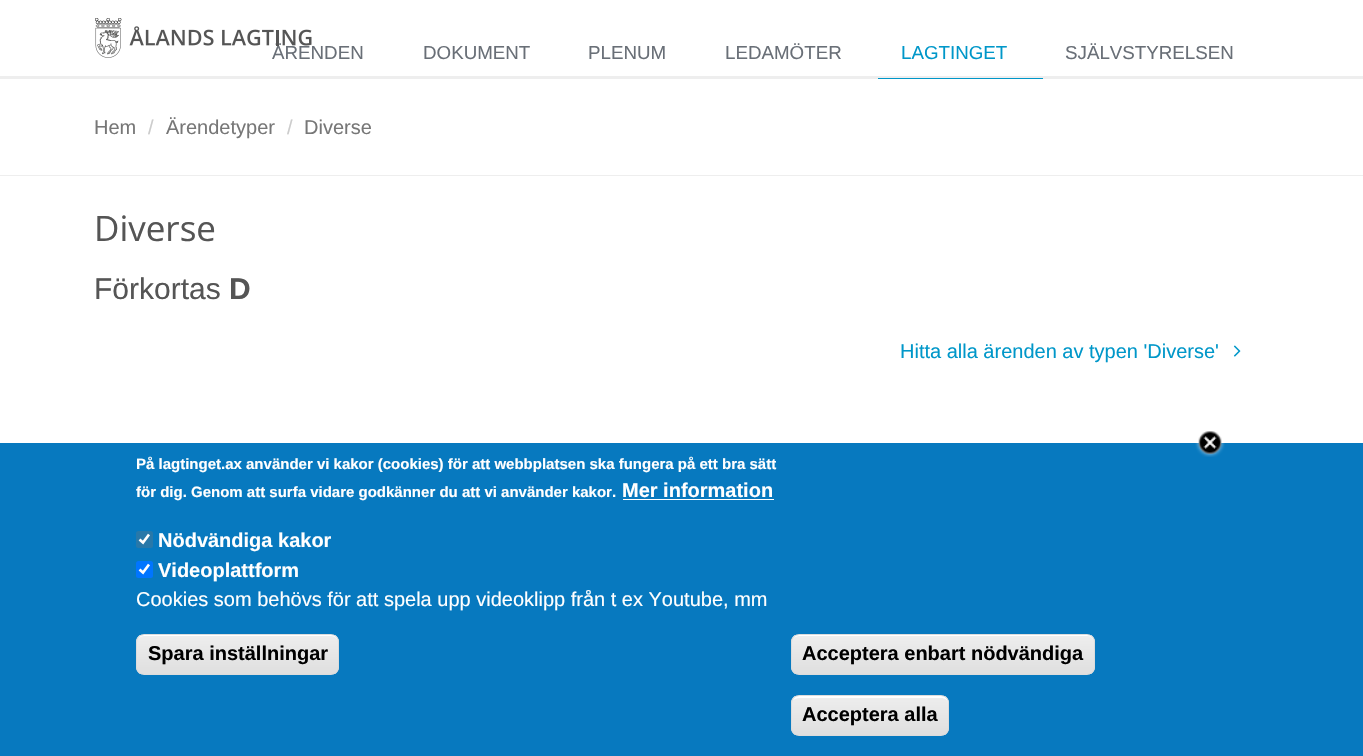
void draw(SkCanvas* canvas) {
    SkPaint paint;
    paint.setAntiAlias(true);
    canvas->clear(0xFFFFFFFF);
    paint.setColor(0xFFEEEEEE);
    canvas->drawRect(SkRect::MakeXYWH(0, 76, 1363, 3), paint);
    SkFont font1(fontMgr->matchFamilyStyle("Liberation Sans", SkFontStyle::Normal()), 18.75f);
    font1.setSubpixel(true);
    paint.setColor(0xFF696F77);
    canvas->drawString("ÄRENDEN", 272, 59, font1, paint);
    canvas->drawImageRect(SkImages::DeferredFromEncodedData(SkData::MakeFromFileName("img1.png")), SkRect::MakeXYWH(95, 18, 217, 40), SkSamplingOptions());
    canvas->drawString("DOKUMENT", 423, 59, font1, paint);
    canvas->drawString("PLENUM", 588, 59, font1, paint);
    canvas->drawString("LEDAMÖTER", 725, 59, font1, paint);
    paint.setColor(0xFF0097C9);
    canvas->drawRect(SkRect::MakeXYWH(878, 78, 165, 1), paint);
    canvas->drawString("LAGTINGET", 901, 59, font1, paint);
    paint.setColor(0xFF696F77);
    canvas->drawString("SJÄLVSTYRELSEN", 1065, 59, font1, paint);
    paint.setColor(0xFFEEEEEE);
    canvas->drawRect(SkRect::MakeXYWH(0, 175, 1363, 1), paint);
    SkFont font2(fontMgr->matchFamilyStyle("Liberation Sans", SkFontStyle::Normal()), 20);
    font2.setSubpixel(true);
    paint.setColor(0xFF777777);
    canvas->drawString("Hem", 94, 134, font2, paint);
    paint.setColor(0xFFCCCCCC);
    canvas->drawString("/", 148, 134, font2, paint);
    paint.setColor(0xFF777777);
    canvas->drawString("Ärendetyper", 166, 134, font2, paint);
    paint.setColor(0xFFCCCCCC);
    canvas->drawString("/", 287, 134, font2, paint);
    paint.setColor(0xFF777777);
    canvas->drawString("Diverse", 304, 134, font2, paint);
    SkFont font3(fontMgr->matchFamilyStyle("Open Sans", SkFontStyle::Normal()), 35);
    font3.setSubpixel(true);
    paint.setColor(0xFF555555);
    canvas->drawString("Diverse", 94, 241, font3, paint);
    SkFont font4(fontMgr->matchFamilyStyle("Liberation Sans", SkFontStyle::Normal()), 30);
    font4.setSubpixel(true);
    canvas->drawString("Förkortas", 94, 299, font4, paint);
    SkFont font5(fontMgr->matchFamilyStyle("Liberation Sans", SkFontStyle::Bold()), 30);
    font5.setSubpixel(true);
    canvas->drawString("D", 229, 299, font5, paint);
    paint.setColor(0xFF0097C9);
    canvas->drawString("Hitta alla ärenden av typen 'Diverse'", 900, 358, font2, paint);
    canvas->drawImageRect(SkImages::DeferredFromEncodedData(SkData::MakeFromFileName("img2.png")), SkRect::MakeXYWH(1233, 345, 8, 12), SkSamplingOptions());
    paint.setColor(0xFF0779BF);
    canvas->drawRect(SkRect::MakeXYWH(0, 443, 1363, 313), paint);
    canvas->drawImageRect(SkImages::DeferredFromEncodedData(SkData::MakeFromFileName("img3.png")), SkRect::MakeXYWH(1195, 431, 30, 26), SkSamplingOptions());
    SkFont font6(fontMgr->matchFamilyStyle("Liberation Sans", SkFontStyle::Bold()), 15);
    font6.setSubpixel(true);
    paint.setColor(0xFFFFFFFF);
    canvas->drawString("På lagtinget.ax använder vi kakor (cookies) för att webbplatsen ska fungera på ett bra sätt", 136, 469, font6, paint);
    canvas->drawString("för dig. Genom att surfa vidare godkänner du att vi använder kakor.", 136, 497, font6, paint);
    SkFont font7(fontMgr->matchFamilyStyle("Liberation Sans", SkFontStyle::Bold()), 20);
    font7.setSubpixel(true);
    canvas->drawString("Mer information", 622, 497, font7, paint);
    canvas->drawRect(SkRect::MakeXYWH(623, 499, 151, 1), paint);
    paint.setColor(0xFF2878A9);
    canvas->drawRoundRect(SkRect::MakeXYWH(136, 531, 17, 17), 2.5f, 2.5f, paint);
    paint.setStyle(SkPaint::kStroke_Style);
    paint.setStrokeWidth(2.6f);
    paint.setColor(0xFFFFFFFF);
    canvas->drawPath(SkPathBuilder().moveTo(139.5f, 539.5f).lineTo(143, 542.5f).lineTo(149, 534.5f).detach(), paint);
    paint.setStyle(SkPaint::kFill_Style);
    canvas->drawString("Nödvändiga kakor", 158, 547, font7, paint);
    paint.setColor(0xFF0075FF);
    canvas->drawRoundRect(SkRect::MakeXYWH(136, 561, 17, 17), 2.5f, 2.5f, paint);
    paint.setStyle(SkPaint::kStroke_Style);
    paint.setColor(0xFFFFFFFF);
    canvas->drawPath(SkPathBuilder().moveTo(139.5f, 569.5f).lineTo(143, 572.5f).lineTo(149, 564.5f).detach(), paint);
    paint.setStyle(SkPaint::kFill_Style);
    canvas->drawString("Videoplattform", 158, 577, font7, paint);
    canvas->drawString("Cookies som behövs för att spela upp videoklipp från t ex Youtube, mm", 136, 606, font2, paint);
    canvas->save();
    canvas->clipPath(SkPathBuilder().moveTo(144, 634).lineTo(331, 634).cubicTo(335.5f, 634, 339, 637.5f, 339, 642).lineTo(339, 667).cubicTo(339, 671.5f, 335.5f, 675, 331, 675).lineTo(144, 675).cubicTo(139.5f, 675, 136, 671.5f, 136, 667).lineTo(136, 642).cubicTo(136, 637.5f, 139.5f, 634, 144, 634).close().detach(), true);
    {
        const SkColor colors[] = {0xFFEDEDED, 0xFFDFDFDF};
        const float stops[] = {0.05f, 1};
        const SkPoint ends[] = {{238, 635}, {238, 674}};
        paint.setShader(SkGradientShader::MakeLinear(ends, colors, stops, 2, SkTileMode::kClamp));
        paint.setAlpha(255);
    }
    canvas->drawRect(SkRect::MakeXYWH(136, 635, 203, 39), paint);
    canvas->restore();
    paint.setShader(nullptr);
    paint.setColor(0xFFFFFFFF);
    canvas->drawPath(SkPathBuilder().moveTo(144, 636).lineTo(331, 636).cubicTo(335, 636, 338, 639, 338, 642).cubicTo(338, 639, 337, 636, 333, 635).lineTo(144, 635).lineTo(141, 636).cubicTo(139, 637, 138, 640, 138, 642).cubicTo(138, 639, 140, 636, 144, 636).close().detach(), paint);
    paint.setStyle(SkPaint::kStroke_Style);
    paint.setStrokeWidth(1);
    paint.setColor(0xFFDCDCDC);
    canvas->drawRoundRect(SkRect::MakeXYWH(136.5f, 634.5f, 202, 40), 7.5f, 7.5f, paint);
    paint.setStyle(SkPaint::kFill_Style);
    paint.setColor(0xFF000000);
    canvas->drawString("Spara inställningar", 148, 660, font7, paint);
    canvas->save();
    canvas->clipPath(SkPathBuilder().moveTo(799, 634).lineTo(1087, 634).cubicTo(1091.5f, 634, 1095, 637.5f, 1095, 642).lineTo(1095, 667).cubicTo(1095, 671.5f, 1091.5f, 675, 1087, 675).lineTo(799, 675).cubicTo(794.5f, 675, 791, 671.5f, 791, 667).lineTo(791, 642).cubicTo(791, 637.5f, 794.5f, 634, 799, 634).close().detach(), true);
    {
        const SkColor colors[] = {0xFFEDEDED, 0xFFDFDFDF};
        const float stops[] = {0.05f, 1};
        const SkPoint ends[] = {{943, 635}, {943, 674}};
        paint.setShader(SkGradientShader::MakeLinear(ends, colors, stops, 2, SkTileMode::kClamp));
        paint.setAlpha(255);
    }
    canvas->drawRect(SkRect::MakeXYWH(791, 635, 304, 39), paint);
    canvas->restore();
    paint.setShader(nullptr);
    paint.setColor(0xFFFFFFFF);
    canvas->drawPath(SkPathBuilder().moveTo(799, 636).lineTo(1088, 636).cubicTo(1091, 636, 1094, 639, 1094, 642).lineTo(1094, 641).cubicTo(1094, 638, 1091, 635, 1088, 635).lineTo(799, 635).cubicTo(797, 635, 795, 636, 794, 638).cubicTo(795, 637, 797, 636, 799, 636).close().detach(), paint);
    paint.setStyle(SkPaint::kStroke_Style);
    paint.setColor(0xFFDCDCDC);
    canvas->drawRoundRect(SkRect::MakeXYWH(791.5f, 634.5f, 303, 40), 7.5f, 7.5f, paint);
    paint.setStyle(SkPaint::kFill_Style);
    paint.setColor(0xFF000000);
    canvas->drawString("Acceptera enbart nödvändiga", 802, 660, font7, paint);
    canvas->save();
    canvas->clipPath(SkPathBuilder().moveTo(799, 695).lineTo(941, 695).cubicTo(945.5f, 695, 949, 698.5f, 949, 703).lineTo(949, 728).cubicTo(949, 732.5f, 945.5f, 736, 941, 736).lineTo(799, 736).cubicTo(794.5f, 736, 791, 732.5f, 791, 728).lineTo(791, 703).cubicTo(791, 698.5f, 794.5f, 695, 799, 695).close().detach(), true);
    {
        const SkColor colors[] = {0xFFEDEDED, 0xFFDFDFDF};
        const float stops[] = {0.05f, 1};
        const SkPoint ends[] = {{870, 696}, {870, 735}};
        paint.setShader(SkGradientShader::MakeLinear(ends, colors, stops, 2, SkTileMode::kClamp));
        paint.setAlpha(255);
    }
    canvas->drawRect(SkRect::MakeXYWH(791, 696, 158, 39), paint);
    canvas->restore();
    paint.setShader(nullptr);
    paint.setColor(0xFFFFFFFF);
    canvas->drawPath(SkPathBuilder().moveTo(799, 698).lineTo(941, 698).cubicTo(945, 698, 948, 700, 948, 704).lineTo(948, 702).cubicTo(948, 699, 945, 696, 942, 696).lineTo(799, 696).cubicTo(796, 696, 794, 698, 793, 700).cubicTo(795, 699, 797, 698, 799, 698).close().detach(), paint);
    paint.setStyle(SkPaint::kStroke_Style);
    paint.setColor(0xFFDCDCDC);
    canvas->drawRoundRect(SkRect::MakeXYWH(791.5f, 695.5f, 157, 40), 7.5f, 7.5f, paint);
    paint.setStyle(SkPaint::kFill_Style);
    paint.setColor(0xFF000000);
    canvas->drawString("Acceptera alla", 802, 721, font7, paint);
}
